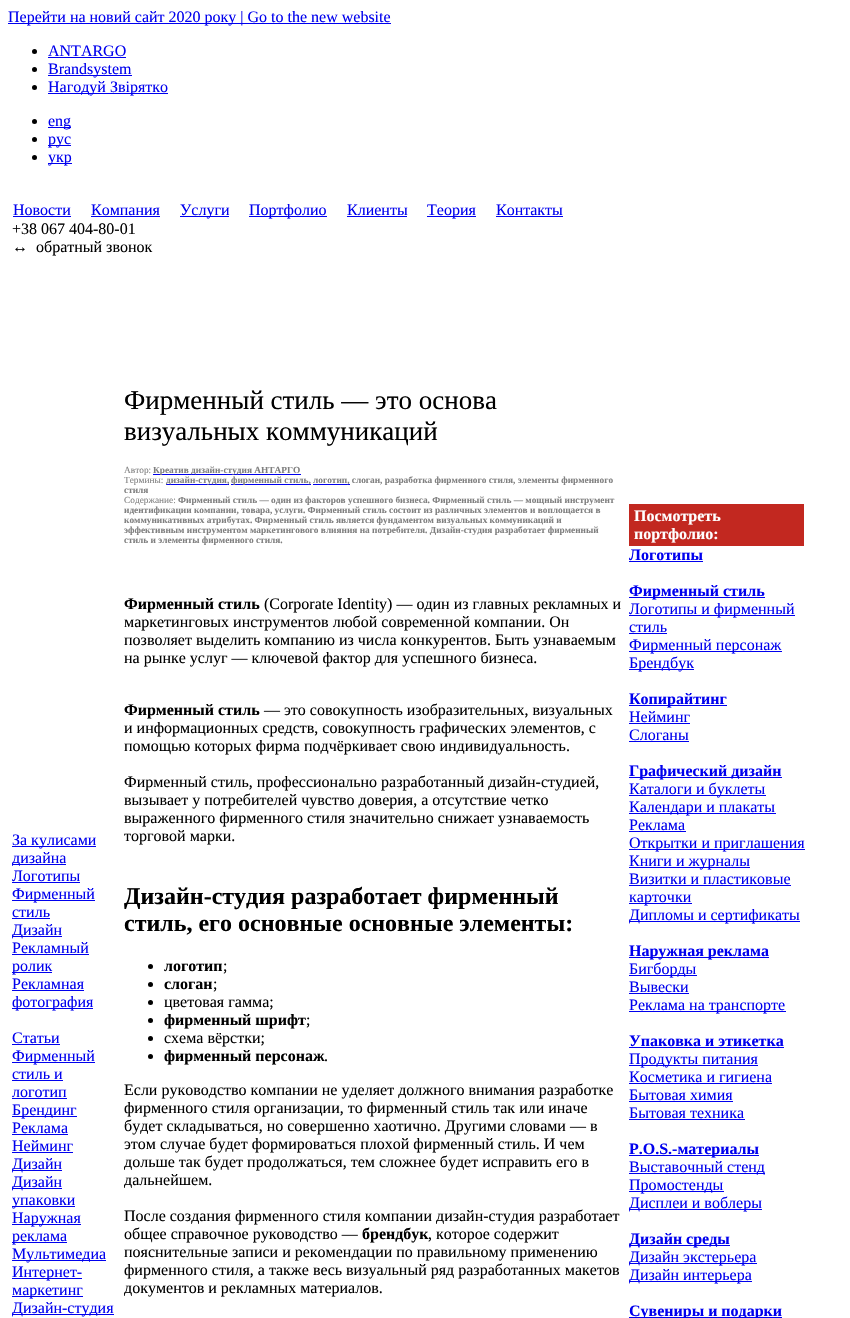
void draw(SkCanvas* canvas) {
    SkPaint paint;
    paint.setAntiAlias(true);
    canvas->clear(0xFFFFFFFF);
    paint.setColor(0xFF0000EE);
    canvas->drawRect(SkRect::MakeXYWH(8, 23, 383, 1), paint);
    SkFont font1(fontMgr->matchFamilyStyle("Liberation Serif", SkFontStyle::Normal()), 16);
    font1.setSubpixel(true);
    canvas->drawString("Перейти на новий сайт 2020 року | Go to the new website", 8, 22, font1, paint);
    paint.setColor(0xFF000000);
    canvas->drawCircle(34.5f, 51.5f, 2.5f, paint);
    paint.setColor(0xFF0000EE);
    canvas->drawString("ANTARGO", 48, 56, font1, paint);
    canvas->drawRect(SkRect::MakeXYWH(48, 57, 78, 1), paint);
    paint.setColor(0xFF000000);
    canvas->drawCircle(34.5f, 69.5f, 2.5f, paint);
    paint.setColor(0xFF0000EE);
    canvas->drawRect(SkRect::MakeXYWH(48, 75, 84, 1), paint);
    canvas->drawString("Brandsystem", 48, 74, font1, paint);
    paint.setColor(0xFF000000);
    canvas->drawCircle(34.5f, 87.5f, 2.5f, paint);
    paint.setColor(0xFF0000EE);
    canvas->drawRect(SkRect::MakeXYWH(48, 93, 120, 1), paint);
    canvas->drawString("Нагодуй Звірятко", 48, 92, font1, paint);
    paint.setColor(0xFF000000);
    canvas->drawCircle(34.5f, 121.5f, 2.5f, paint);
    paint.setColor(0xFF0000EE);
    canvas->drawRect(SkRect::MakeXYWH(48, 127, 23, 1), paint);
    canvas->drawString("eng", 48, 126, font1, paint);
    paint.setColor(0xFF000000);
    canvas->drawCircle(34.5f, 139.5f, 2.5f, paint);
    paint.setColor(0xFF0000EE);
    canvas->drawRect(SkRect::MakeXYWH(48, 145, 23, 1), paint);
    canvas->drawString("рус", 48, 144, font1, paint);
    paint.setColor(0xFF000000);
    canvas->drawCircle(34.5f, 157.5f, 2.5f, paint);
    paint.setColor(0xFF0000EE);
    canvas->drawRect(SkRect::MakeXYWH(48, 163, 24, 1), paint);
    canvas->drawString("укр", 48, 162, font1, paint);
    canvas->drawString("Новости", 13, 215, font1, paint);
    canvas->drawRect(SkRect::MakeXYWH(13, 216, 58, 1), paint);
    canvas->drawString("Компания", 91, 215, font1, paint);
    canvas->drawRect(SkRect::MakeXYWH(91, 216, 69, 1), paint);
    canvas->drawRect(SkRect::MakeXYWH(180, 216, 49, 1), paint);
    canvas->drawString("Услуги", 180, 215, font1, paint);
    canvas->drawRect(SkRect::MakeXYWH(249, 216, 78, 1), paint);
    canvas->drawString("Портфолио", 249, 215, font1, paint);
    canvas->drawString("Клиенты", 347, 215, font1, paint);
    canvas->drawRect(SkRect::MakeXYWH(347, 216, 60, 1), paint);
    canvas->drawRect(SkRect::MakeXYWH(427, 216, 49, 1), paint);
    canvas->drawString("Теория", 427, 215, font1, paint);
    canvas->drawString("Контакты", 496, 215, font1, paint);
    canvas->drawRect(SkRect::MakeXYWH(496, 216, 67, 1), paint);
    paint.setColor(0xFF000000);
    canvas->drawString("+38 067 404-80-01", 12, 234, font1, paint);
    canvas->drawString("↔", 12, 252, font1, paint);
    canvas->drawString("обратный звонок", 36, 252, font1, paint);
    paint.setColor(0xFF0000EE);
    canvas->drawRect(SkRect::MakeXYWH(12, 846, 84, 1), paint);
    canvas->drawString("За кулисами", 12, 845, font1, paint);
    canvas->drawRect(SkRect::MakeXYWH(12, 864, 54, 1), paint);
    canvas->drawString("дизайна", 12, 863, font1, paint);
    canvas->drawString("Логотипы", 12, 881, font1, paint);
    canvas->drawRect(SkRect::MakeXYWH(12, 882, 68, 1), paint);
    canvas->drawRect(SkRect::MakeXYWH(12, 900, 83, 1), paint);
    canvas->drawString("Фирменный", 12, 899, font1, paint);
    canvas->drawString("стиль", 12, 917, font1, paint);
    canvas->drawRect(SkRect::MakeXYWH(12, 918, 38, 1), paint);
    canvas->drawRect(SkRect::MakeXYWH(12, 936, 50, 1), paint);
    canvas->drawString("Дизайн", 12, 935, font1, paint);
    canvas->drawString("Рекламный", 12, 953, font1, paint);
    canvas->drawRect(SkRect::MakeXYWH(12, 954, 77, 1), paint);
    canvas->drawRect(SkRect::MakeXYWH(12, 972, 40, 1), paint);
    canvas->drawString("ролик", 12, 971, font1, paint);
    canvas->drawString("Рекламная", 12, 989, font1, paint);
    canvas->drawRect(SkRect::MakeXYWH(12, 990, 72, 1), paint);
    canvas->drawRect(SkRect::MakeXYWH(12, 1008, 81, 1), paint);
    canvas->drawString("фотография", 12, 1007, font1, paint);
    canvas->drawString("Статьи", 12, 1043, font1, paint);
    canvas->drawRect(SkRect::MakeXYWH(12, 1044, 48, 1), paint);
    canvas->drawRect(SkRect::MakeXYWH(12, 1062, 83, 1), paint);
    canvas->drawString("Фирменный", 12, 1061, font1, paint);
    canvas->drawString("стиль и", 12, 1079, font1, paint);
    canvas->drawRect(SkRect::MakeXYWH(12, 1080, 51, 1), paint);
    canvas->drawString("логотип", 12, 1097, font1, paint);
    canvas->drawRect(SkRect::MakeXYWH(12, 1098, 55, 1), paint);
    canvas->drawRect(SkRect::MakeXYWH(12, 1116, 65, 1), paint);
    canvas->drawString("Брендинг", 12, 1115, font1, paint);
    canvas->drawString("Реклама", 12, 1133, font1, paint);
    canvas->drawRect(SkRect::MakeXYWH(12, 1134, 56, 1), paint);
    canvas->drawString("Нейминг", 12, 1151, font1, paint);
    canvas->drawRect(SkRect::MakeXYWH(12, 1152, 61, 1), paint);
    canvas->drawRect(SkRect::MakeXYWH(12, 1170, 50, 1), paint);
    canvas->drawString("Дизайн", 12, 1169, font1, paint);
    canvas->drawRect(SkRect::MakeXYWH(12, 1188, 50, 1), paint);
    canvas->drawString("Дизайн", 12, 1187, font1, paint);
    canvas->drawRect(SkRect::MakeXYWH(12, 1206, 63, 1), paint);
    canvas->drawString("упаковки", 12, 1205, font1, paint);
    canvas->drawRect(SkRect::MakeXYWH(12, 1224, 69, 1), paint);
    canvas->drawString("Наружная", 12, 1223, font1, paint);
    canvas->drawRect(SkRect::MakeXYWH(12, 1242, 55, 1), paint);
    canvas->drawString("реклама", 12, 1241, font1, paint);
    canvas->drawRect(SkRect::MakeXYWH(12, 1260, 94, 1), paint);
    canvas->drawString("Мультимедиа", 12, 1259, font1, paint);
    canvas->drawRect(SkRect::MakeXYWH(12, 1278, 70, 1), paint);
    canvas->drawString("Интернет-", 12, 1277, font1, paint);
    canvas->drawRect(SkRect::MakeXYWH(12, 1296, 71, 1), paint);
    canvas->drawString("маркетинг", 12, 1295, font1, paint);
    canvas->drawRect(SkRect::MakeXYWH(12, 1314, 102, 1), paint);
    canvas->drawString("Дизайн-студия", 12, 1313, font1, paint);
    SkFont font2(fontMgr->matchFamilyStyle("Liberation Serif", SkFontStyle::Normal()), 27);
    font2.setSubpixel(true);
    paint.setColor(0xFF000000);
    canvas->drawString("Фирменный стиль — это основа", 124, 409, font2, paint);
    canvas->drawString("визуальных коммуникаций", 124, 440, font2, paint);
    SkFont font3(fontMgr->matchFamilyStyle("Liberation Serif", SkFontStyle::Normal()), 9.33f);
    font3.setSubpixel(true);
    paint.setColor(0xFF808080);
    canvas->drawString("Автор:", 124, 473, font3, paint);
    paint.setColor(0xFF0000EE);
    canvas->drawRect(SkRect::MakeXYWH(153, 474, 148, 1), paint);
    SkFont font4(fontMgr->matchFamilyStyle("Liberation Serif", SkFontStyle::Bold()), 9.33f);
    font4.setSubpixel(true);
    paint.setColor(0xFF808080);
    canvas->drawString("Креатив дизайн-студия АНТАРГО", 153, 473, font4, paint);
    canvas->drawString("Термины:", 124, 483, font3, paint);
    paint.setColor(0xFF0000EE);
    canvas->drawRect(SkRect::MakeXYWH(166, 484, 63, 1), paint);
    paint.setColor(0xFF808080);
    canvas->drawString("дизайн-студия,", 166, 483, font4, paint);
    paint.setColor(0xFF0000EE);
    canvas->drawRect(SkRect::MakeXYWH(231, 484, 80, 1), paint);
    paint.setColor(0xFF808080);
    canvas->drawString("фирменный стиль,", 231, 483, font4, paint);
    paint.setColor(0xFF0000EE);
    canvas->drawRect(SkRect::MakeXYWH(313, 484, 37, 1), paint);
    paint.setColor(0xFF808080);
    canvas->drawString("логотип, слоган, разработка фирменного стиля, элементы фирменного", 313, 483, font4, paint);
    canvas->drawString("стиля", 124, 493, font4, paint);
    canvas->drawString("Содержание:", 124, 503, font3, paint);
    canvas->drawString("Фирменный стиль — один из факторов успешного бизнеса. Фирменный стиль — мощный инструмент", 178, 503, font4, paint);
    canvas->drawString("идентификации компании, товара, услуги. Фирменный стиль состоит из различных элементов и воплощается в", 124, 513, font4, paint);
    canvas->drawString("коммуникативных атрибутах. Фирменный стиль является фундаментом визуальных коммуникаций и", 124, 523, font4, paint);
    canvas->drawString("эффективным инструментом маркетингового влияния на потребителя. Дизайн-студия разработает фирменный", 124, 533, font4, paint);
    canvas->drawString("стиль и элементы фирменного стиля.", 124, 543, font4, paint);
    SkFont font5(fontMgr->matchFamilyStyle("Liberation Serif", SkFontStyle::Bold()), 16);
    font5.setSubpixel(true);
    paint.setColor(0xFF000000);
    canvas->drawString("Фирменный стиль", 124, 609, font5, paint);
    canvas->drawString("(Corporate Identity) — один из главных рекламных и", 264, 609, font1, paint);
    canvas->drawString("маркетинговых инструментов любой современной компании. Он", 124, 627, font1, paint);
    canvas->drawString("позволяет выделить компанию из числа конкурентов. Быть узнаваемым", 124, 645, font1, paint);
    canvas->drawString("на рынке услуг — ключевой фактор для успешного бизнеса.", 124, 663, font1, paint);
    canvas->drawString("Фирменный стиль", 124, 715, font5, paint);
    canvas->drawString("— это совокупность изобразительных, визуальных", 264, 715, font1, paint);
    canvas->drawString("и информационных средств, совокупность графических элементов, с", 124, 733, font1, paint);
    canvas->drawString("помощью которых фирма подчёркивает свою индивидуальность.", 124, 751, font1, paint);
    canvas->drawString("Фирменный стиль, профессионально разработанный дизайн-студией,", 124, 787, font1, paint);
    canvas->drawString("вызывает у потребителей чувство доверия, а отсутствие четко", 124, 805, font1, paint);
    canvas->drawString("выраженного фирменного стиля значительно снижает узнаваемость", 124, 823, font1, paint);
    canvas->drawString("торговой марки.", 124, 841, font1, paint);
    SkFont font6(fontMgr->matchFamilyStyle("Liberation Serif", SkFontStyle::Bold()), 24);
    font6.setSubpixel(true);
    canvas->drawString("Дизайн-студия разработает фирменный", 124, 904, font6, paint);
    canvas->drawString("стиль, его основные основные элементы:", 124, 931, font6, paint);
    canvas->drawCircle(150.5f, 966.5f, 2.5f, paint);
    canvas->drawString("логотип", 164, 971, font5, paint);
    canvas->drawString(";", 223, 971, font1, paint);
    canvas->drawCircle(150.5f, 984.5f, 2.5f, paint);
    canvas->drawString("слоган", 164, 989, font5, paint);
    canvas->drawString(";", 213, 989, font1, paint);
    canvas->drawCircle(150.5f, 1002.5f, 2.5f, paint);
    canvas->drawString("цветовая гамма;", 164, 1007, font1, paint);
    canvas->drawCircle(150.5f, 1020.5f, 2.5f, paint);
    canvas->drawString("фирменный шрифт", 164, 1025, font5, paint);
    canvas->drawString(";", 306, 1025, font1, paint);
    canvas->drawCircle(150.5f, 1038.5f, 2.5f, paint);
    canvas->drawString("схема вёрстки;", 164, 1043, font1, paint);
    canvas->drawCircle(150.5f, 1056.5f, 2.5f, paint);
    canvas->drawString("фирменный персонаж", 164, 1061, font5, paint);
    canvas->drawString(".", 324, 1061, font1, paint);
    canvas->drawString("Если руководство компании не уделяет должного внимания разработке", 124, 1095, font1, paint);
    canvas->drawString("фирменного стиля организации, то фирменный стиль так или иначе", 124, 1113, font1, paint);
    canvas->drawString("будет складываться, но совершенно хаотично. Другими словами — в", 124, 1131, font1, paint);
    canvas->drawString("этом случае будет формироваться плохой фирменный стиль. И чем", 124, 1149, font1, paint);
    canvas->drawString("дольше так будет продолжаться, тем сложнее будет исправить его в", 124, 1167, font1, paint);
    canvas->drawString("дальнейшем.", 124, 1185, font1, paint);
    canvas->drawString("После создания фирменного стиля компании дизайн-студия разработает", 124, 1221, font1, paint);
    canvas->drawString("общее справочное руководство —", 124, 1239, font1, paint);
    canvas->drawString("брендбук", 362, 1239, font5, paint);
    canvas->drawString(", которое содержит", 428, 1239, font1, paint);
    canvas->drawString("пояснительные записи и рекомендации по правильному применению", 124, 1257, font1, paint);
    canvas->drawString("фирменного стиля, а также весь визуальный ряд разработанных макетов", 124, 1275, font1, paint);
    canvas->drawString("документов и рекламных материалов.", 124, 1293, font1, paint);
    paint.setColor(0xFFC22820);
    canvas->drawRect(SkRect::MakeXYWH(629, 504, 175, 42), paint);
    paint.setColor(0xFFFFFFFF);
    canvas->drawString("Посмотреть", 634, 521, font5, paint);
    canvas->drawString("портфолио:", 634, 539, font5, paint);
    paint.setColor(0xFF0000EE);
    canvas->drawString("Логотипы", 629, 560, font5, paint);
    canvas->drawRect(SkRect::MakeXYWH(629, 561, 74, 1), paint);
    canvas->drawRect(SkRect::MakeXYWH(629, 597, 136, 1), paint);
    canvas->drawString("Фирменный стиль", 629, 596, font5, paint);
    canvas->drawRect(SkRect::MakeXYWH(629, 615, 166, 1), paint);
    canvas->drawString("Логотипы и фирменный", 629, 614, font1, paint);
    canvas->drawString("стиль", 629, 632, font1, paint);
    canvas->drawRect(SkRect::MakeXYWH(629, 633, 38, 1), paint);
    canvas->drawRect(SkRect::MakeXYWH(629, 651, 153, 1), paint);
    canvas->drawString("Фирменный персонаж", 629, 650, font1, paint);
    canvas->drawRect(SkRect::MakeXYWH(629, 669, 65, 1), paint);
    canvas->drawString("Брендбук", 629, 668, font1, paint);
    canvas->drawRect(SkRect::MakeXYWH(629, 705, 98, 1), paint);
    canvas->drawString("Копирайтинг", 629, 704, font5, paint);
    canvas->drawString("Нейминг", 629, 722, font1, paint);
    canvas->drawRect(SkRect::MakeXYWH(629, 723, 61, 1), paint);
    canvas->drawString("Слоганы", 629, 740, font1, paint);
    canvas->drawRect(SkRect::MakeXYWH(629, 741, 60, 1), paint);
    canvas->drawRect(SkRect::MakeXYWH(629, 777, 153, 1), paint);
    canvas->drawString("Графический дизайн", 629, 776, font5, paint);
    canvas->drawRect(SkRect::MakeXYWH(629, 795, 137, 1), paint);
    canvas->drawString("Каталоги и буклеты", 629, 794, font1, paint);
    canvas->drawRect(SkRect::MakeXYWH(629, 813, 147, 1), paint);
    canvas->drawString("Календари и плакаты", 629, 812, font1, paint);
    canvas->drawString("Реклама", 629, 830, font1, paint);
    canvas->drawRect(SkRect::MakeXYWH(629, 831, 57, 1), paint);
    canvas->drawRect(SkRect::MakeXYWH(629, 849, 176, 1), paint);
    canvas->drawString("Открытки и приглашения", 629, 848, font1, paint);
    canvas->drawRect(SkRect::MakeXYWH(629, 867, 121, 1), paint);
    canvas->drawString("Книги и журналы", 629, 866, font1, paint);
    canvas->drawString("Визитки и пластиковые", 629, 884, font1, paint);
    canvas->drawRect(SkRect::MakeXYWH(629, 885, 162, 1), paint);
    canvas->drawRect(SkRect::MakeXYWH(629, 903, 63, 1), paint);
    canvas->drawString("карточки", 629, 902, font1, paint);
    canvas->drawRect(SkRect::MakeXYWH(629, 921, 171, 1), paint);
    canvas->drawString("Дипломы и сертификаты", 629, 920, font1, paint);
    canvas->drawRect(SkRect::MakeXYWH(629, 957, 140, 1), paint);
    canvas->drawString("Наружная реклама", 629, 956, font5, paint);
    canvas->drawRect(SkRect::MakeXYWH(629, 975, 68, 1), paint);
    canvas->drawString("Бигборды", 629, 974, font1, paint);
    canvas->drawString("Вывески", 629, 992, font1, paint);
    canvas->drawRect(SkRect::MakeXYWH(629, 993, 60, 1), paint);
    canvas->drawRect(SkRect::MakeXYWH(629, 1011, 157, 1), paint);
    canvas->drawString("Реклама на транспорте", 629, 1010, font1, paint);
    canvas->drawString("Упаковка и этикетка", 629, 1046, font5, paint);
    canvas->drawRect(SkRect::MakeXYWH(629, 1047, 155, 1), paint);
    canvas->drawRect(SkRect::MakeXYWH(629, 1065, 129, 1), paint);
    canvas->drawString("Продукты питания", 629, 1064, font1, paint);
    canvas->drawString("Косметика и гигиена", 629, 1082, font1, paint);
    canvas->drawRect(SkRect::MakeXYWH(629, 1083, 143, 1), paint);
    canvas->drawString("Бытовая химия", 629, 1100, font1, paint);
    canvas->drawRect(SkRect::MakeXYWH(629, 1101, 104, 1), paint);
    canvas->drawString("Бытовая техника", 629, 1118, font1, paint);
    canvas->drawRect(SkRect::MakeXYWH(629, 1119, 116, 1), paint);
    canvas->drawRect(SkRect::MakeXYWH(629, 1155, 130, 1), paint);
    canvas->drawString("P.O.S.-материалы", 629, 1154, font5, paint);
    canvas->drawRect(SkRect::MakeXYWH(629, 1173, 136, 1), paint);
    canvas->drawString("Выставочный стенд", 629, 1172, font1, paint);
    canvas->drawRect(SkRect::MakeXYWH(629, 1191, 95, 1), paint);
    canvas->drawString("Промостенды", 629, 1190, font1, paint);
    canvas->drawRect(SkRect::MakeXYWH(629, 1209, 133, 1), paint);
    canvas->drawString("Дисплеи и воблеры", 629, 1208, font1, paint);
    canvas->drawRect(SkRect::MakeXYWH(629, 1245, 101, 1), paint);
    canvas->drawString("Дизайн среды", 629, 1244, font5, paint);
    canvas->drawRect(SkRect::MakeXYWH(629, 1263, 128, 1), paint);
    canvas->drawString("Дизайн экстерьера", 629, 1262, font1, paint);
    canvas->drawRect(SkRect::MakeXYWH(629, 1281, 123, 1), paint);
    canvas->drawString("Дизайн интерьера", 629, 1280, font1, paint);
    canvas->drawRect(SkRect::MakeXYWH(629, 1317, 153, 1), paint);
    canvas->drawString("Сувениры и подарки", 629, 1316, font5, paint);
}
